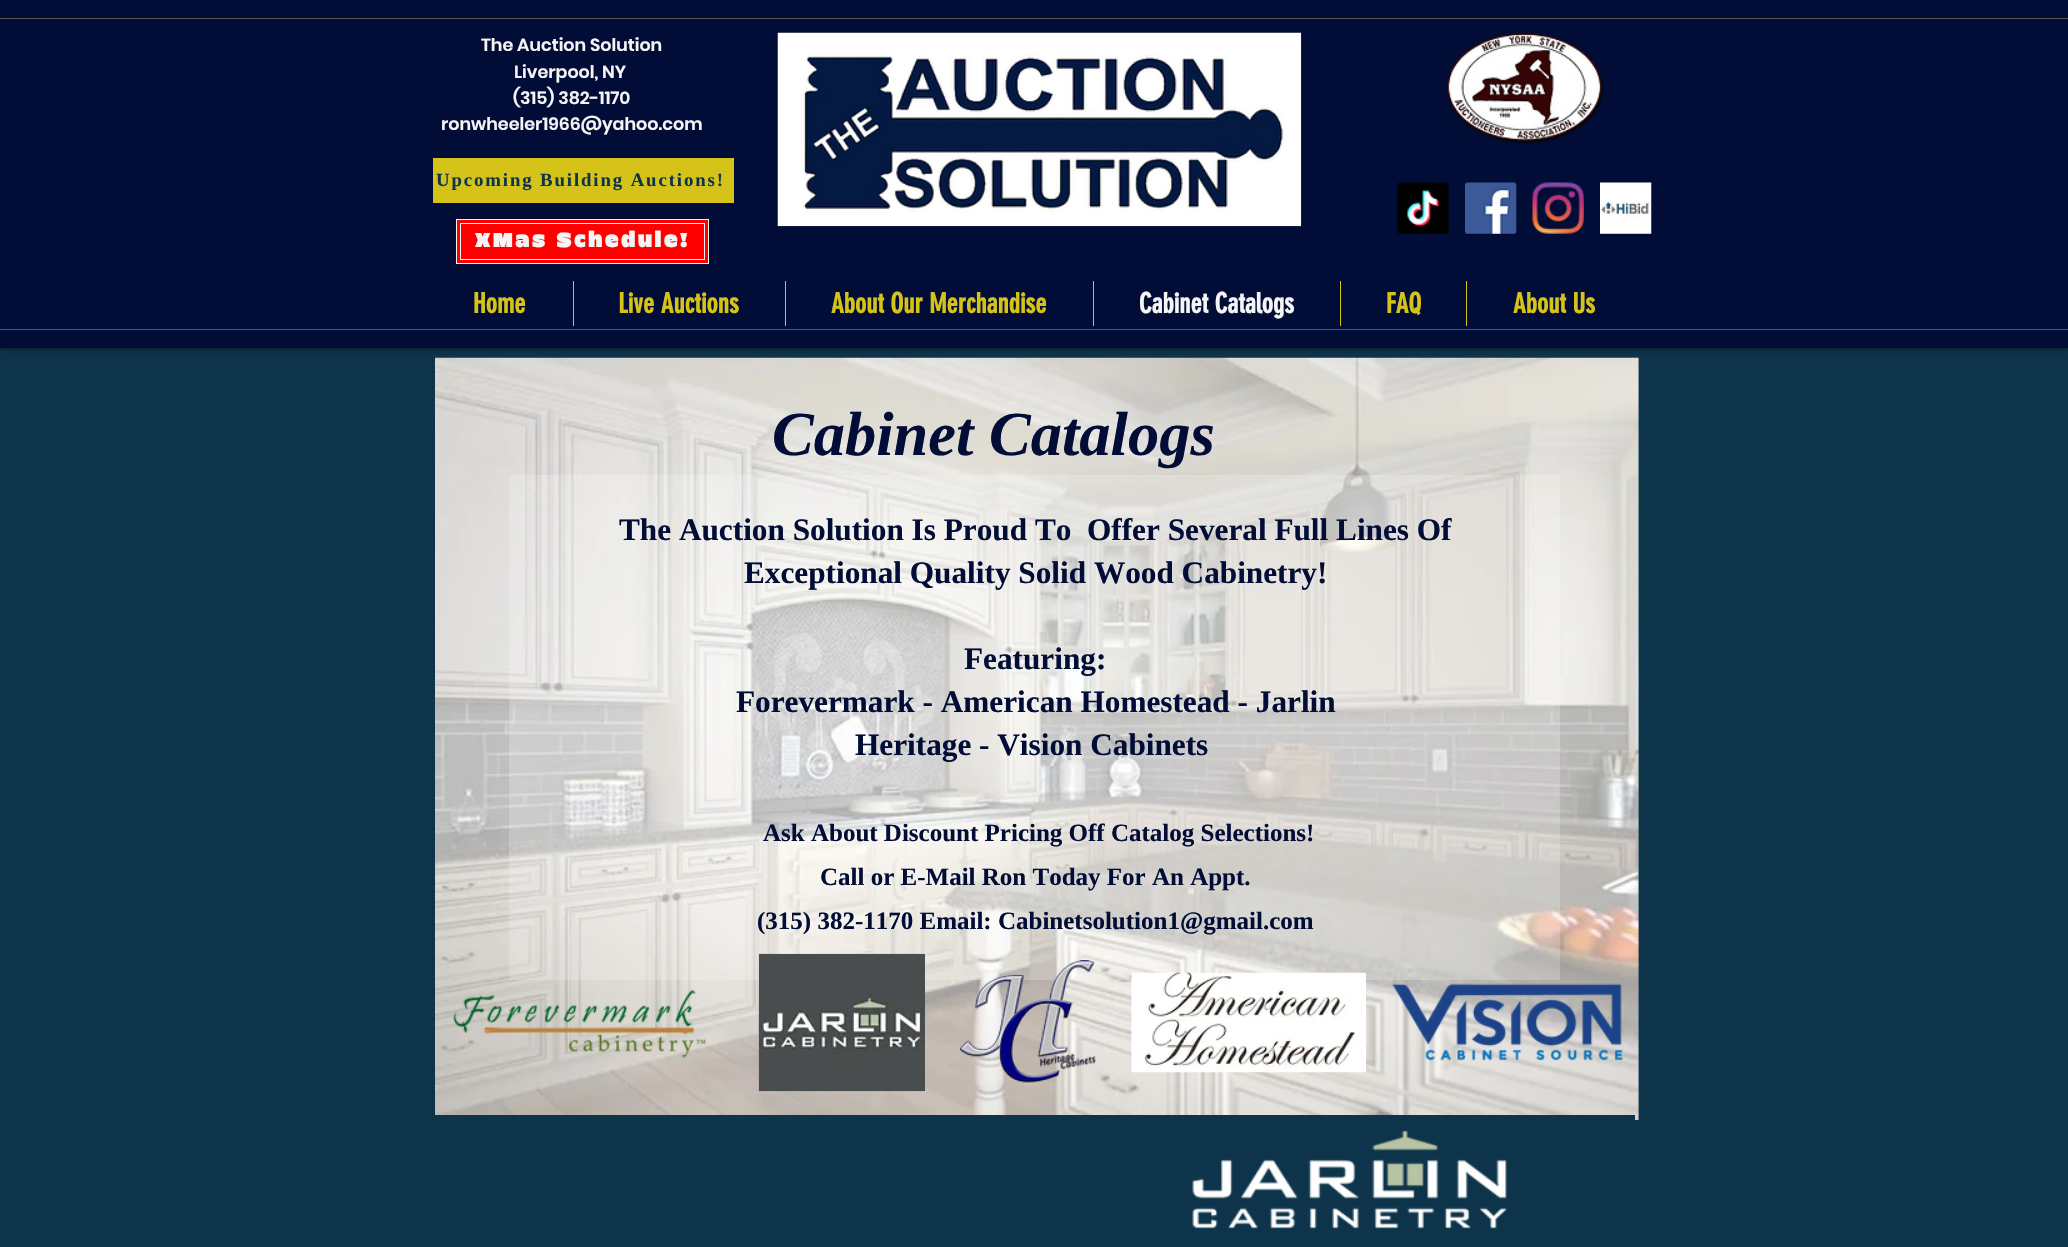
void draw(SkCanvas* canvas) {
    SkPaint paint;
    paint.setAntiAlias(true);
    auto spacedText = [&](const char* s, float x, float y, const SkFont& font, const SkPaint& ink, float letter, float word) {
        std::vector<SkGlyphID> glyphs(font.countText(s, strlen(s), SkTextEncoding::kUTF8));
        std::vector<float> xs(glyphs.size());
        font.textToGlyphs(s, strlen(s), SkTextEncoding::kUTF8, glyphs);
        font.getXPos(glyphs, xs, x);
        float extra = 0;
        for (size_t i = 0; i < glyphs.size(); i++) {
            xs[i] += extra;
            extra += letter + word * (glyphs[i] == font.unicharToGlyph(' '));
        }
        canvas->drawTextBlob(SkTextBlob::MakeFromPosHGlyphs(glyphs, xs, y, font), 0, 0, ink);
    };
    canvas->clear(0xFF0D344A);
    paint.setColor(0xB3000000);
    paint.setMaskFilter(SkMaskFilter::MakeBlur(kNormal_SkBlurStyle, 3));
    canvas->drawRect(SkRect::MakeXYWH(0, 0, 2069, 348), paint);
    paint.setMaskFilter(nullptr);
    paint.setColor(0xFF010D36);
    canvas->drawRect(SkRect::MakeXYWH(0, 0, 2068, 348), paint);
    paint.setColor(0xFF565656);
    canvas->drawRect(SkRect::MakeXYWH(0, 18, 2068, 1), paint);
    canvas->drawRect(SkRect::MakeXYWH(0, 329, 2068, 1), paint);
    SkFont font1(fontMgr->matchFamilyStyle("Poppins", SkFontStyle(600, SkFontStyle::kNormal_Width, SkFontStyle::kUpright_Slant)), 17.5f);
    font1.setSubpixel(true);
    paint.setColor(0xFFF5F5F5);
    canvas->drawString("The Auction Solution", 481, 51, font1, paint);
    canvas->drawString("Liverpool, NY", 514, 78, font1, paint);
    canvas->drawString("(315) 382-1170", 513, 104, font1, paint);
    canvas->drawString("ronwheeler1966@yahoo.com", 441, 130, font1, paint);
    canvas->drawImageRect(SkImages::DeferredFromEncodedData(SkData::MakeFromFileName("img1.png")), SkRect::MakeXYWH(777, 32, 525, 195), SkSamplingOptions());
    canvas->drawImageRect(SkImages::DeferredFromEncodedData(SkData::MakeFromFileName("img2.png")), SkRect::MakeXYWH(1446, 32, 158, 112), SkSamplingOptions());
    paint.setColor(0xFFD6C31A);
    canvas->drawRect(SkRect::MakeXYWH(433, 158, 301, 45), paint);
    SkFont font2(fontMgr->matchFamilyStyle("Liberation Serif", SkFontStyle::Bold()), 18.75f);
    font2.setSubpixel(true);
    paint.setColor(0xFF0D344A);
    spacedText("Upcoming Building Auctions!", 436, 186, font2, paint, 1.9f, 0);
    canvas->drawImageRect(SkImages::DeferredFromEncodedData(SkData::MakeFromFileName("img3.png")), SkRect::MakeXYWH(1397, 182, 52, 52), SkSamplingOptions());
    canvas->drawImageRect(SkImages::DeferredFromEncodedData(SkData::MakeFromFileName("img4.png")), SkRect::MakeXYWH(1465, 182, 52, 52), SkSamplingOptions());
    canvas->drawImageRect(SkImages::DeferredFromEncodedData(SkData::MakeFromFileName("img5.png")), SkRect::MakeXYWH(1532, 182, 52, 52), SkSamplingOptions());
    canvas->drawImageRect(SkImages::DeferredFromEncodedData(SkData::MakeFromFileName("img6.png")), SkRect::MakeXYWH(1600, 182, 52, 52), SkSamplingOptions());
    paint.setColor(0xFFFF0000);
    canvas->drawRect(SkRect::MakeXYWH(456.5f, 219.5f, 252, 44), paint);
    paint.setStyle(SkPaint::kStroke_Style);
    paint.setStrokeWidth(1);
    paint.setColor(0xFFF5F5F5);
    canvas->drawRect(SkRect::MakeXYWH(456.5f, 219.5f, 252, 44), paint);
    canvas->drawRect(SkRect::MakeXYWH(460.5f, 223.5f, 244, 36), paint);
    SkFont font3(fontMgr->matchFamilyStyle("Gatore", SkFontStyle::Bold()), 21.25f);
    font3.setSubpixel(true);
    paint.setStyle(SkPaint::kFill_Style);
    spacedText("XMas Schedule!", 475, 247, font3, paint, 3.25f, 0);
    SkFont font4(fontMgr->matchFamilyStyle("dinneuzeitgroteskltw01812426", SkFontStyle::Bold()), 27.5f);
    font4.setSubpixel(true);
    paint.setColor(0xFFD6C31A);
    canvas->drawString("Home", 473, 313, font4, paint);
    canvas->drawRect(SkRect::MakeXYWH(573, 281, 1, 45), paint);
    canvas->drawString("Live Auctions", 618, 313, font4, paint);
    canvas->drawRect(SkRect::MakeXYWH(785, 281, 1, 45), paint);
    canvas->drawString("About Our Merchandise", 831, 313, font4, paint);
    canvas->drawRect(SkRect::MakeXYWH(1093, 281, 1, 45), paint);
    paint.setColor(0xFFF5F5F5);
    canvas->drawString("Cabinet Catalogs", 1139, 313, font4, paint);
    paint.setColor(0xFFD6C31A);
    canvas->drawRect(SkRect::MakeXYWH(1340, 281, 1, 45), paint);
    canvas->drawString("FAQ", 1386, 313, font4, paint);
    canvas->drawRect(SkRect::MakeXYWH(1466, 281, 1, 45), paint);
    canvas->drawString("About Us", 1513, 313, font4, paint);
    canvas->drawImageRect(SkImages::DeferredFromEncodedData(SkData::MakeFromFileName("img7.png")), SkRect::MakeXYWH(435, 357, 1204, 763), SkSamplingOptions());
    SkFont font5(fontMgr->matchFamilyStyle("Liberation Serif", SkFontStyle::BoldItalic()), 62.5f);
    font5.setSubpixel(true);
    paint.setColor(0xFF010D36);
    canvas->drawString("Cabinet Catalogs", 772, 455, font5, paint);
    paint.setColor(0x36FFFFFF);
    canvas->drawRect(SkRect::MakeXYWH(509, 475, 1051, 505), paint);
    SkFont font6(fontMgr->matchFamilyStyle("Liberation Serif", SkFontStyle::Bold()), 31.25f);
    font6.setSubpixel(true);
    paint.setColor(0xFF010D36);
    canvas->drawString("The Auction Solution Is Proud To  Offer Several Full Lines Of", 619, 540, font6, paint);
    canvas->drawString("Exceptional Quality Solid Wood Cabinetry!", 744, 583, font6, paint);
    canvas->drawString("Featuring:", 964, 669, font6, paint);
    canvas->drawString("Forevermark - American Homestead - Jarlin", 736, 712, font6, paint);
    canvas->drawString("Heritage - Vision Cabinets", 855, 755, font6, paint);
    SkFont font7(fontMgr->matchFamilyStyle("Liberation Serif", SkFontStyle::Bold()), 25);
    font7.setSubpixel(true);
    canvas->drawString("Ask About Discount Pricing Off Catalog Selections!", 763, 841, font7, paint);
    canvas->drawString("Call or E-Mail Ron Today For An Appt.", 820, 885, font7, paint);
    canvas->drawString("(315) 382-1170 Email: Cabinetsolution1@gmail.com", 757, 929, font7, paint);
    canvas->drawImageRect(SkImages::DeferredFromEncodedData(SkData::MakeFromFileName("img8.png")), SkRect::MakeXYWH(453, 989, 254, 69), SkSamplingOptions());
    canvas->drawImageRect(SkImages::DeferredFromEncodedData(SkData::MakeFromFileName("img9.png")), SkRect::MakeXYWH(758, 953, 167, 139), SkSamplingOptions());
    canvas->drawImageRect(SkImages::DeferredFromEncodedData(SkData::MakeFromFileName("img10.png")), SkRect::MakeXYWH(960, 960, 136, 124), SkSamplingOptions());
    canvas->drawImageRect(SkImages::DeferredFromEncodedData(SkData::MakeFromFileName("img11.png")), SkRect::MakeXYWH(1131, 972, 236, 101), SkSamplingOptions());
    canvas->drawImageRect(SkImages::DeferredFromEncodedData(SkData::MakeFromFileName("img12.png")), SkRect::MakeXYWH(1392, 983, 231, 78), SkSamplingOptions());
    paint.setColor(0xFF0D344A);
    canvas->drawRect(SkRect::MakeXYWH(435, 1115, 1200, 5), paint);
    canvas->drawImageRect(SkImages::DeferredFromEncodedData(SkData::MakeFromFileName("img13.png")), SkRect::MakeXYWH(1192, 1130, 315, 99), SkSamplingOptions());
}
